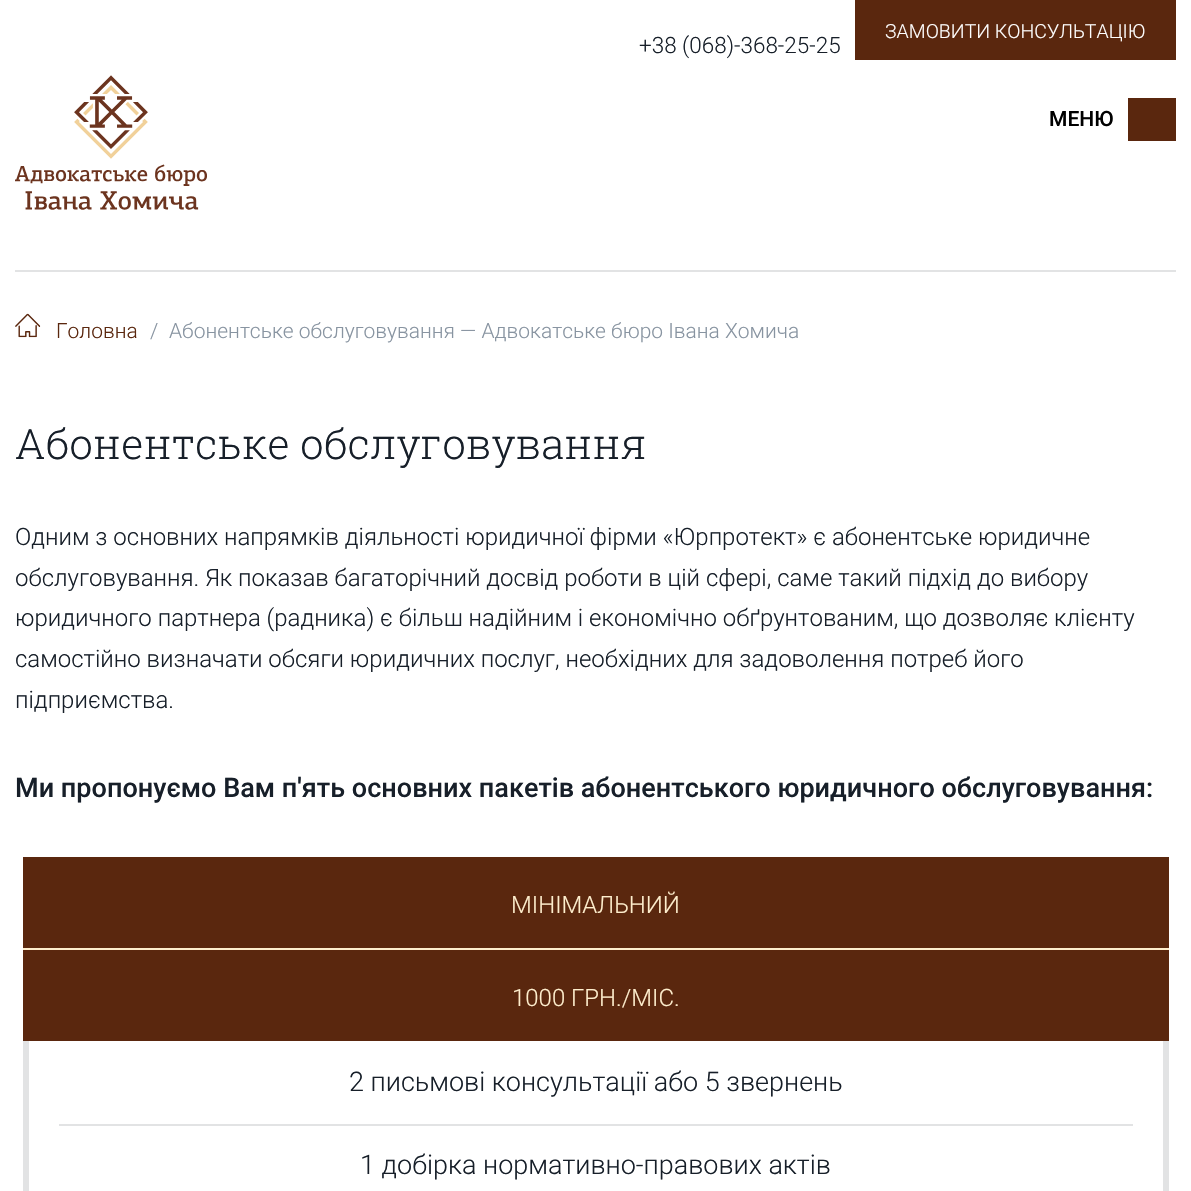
void draw(SkCanvas* canvas) {
    SkPaint paint;
    paint.setAntiAlias(true);
    canvas->clear(0xFFFFFFFF);
    paint.setColor(0xFF5A270E);
    canvas->drawRect(SkRect::MakeXYWH(855, 0, 321, 60), paint);
    SkFont font1(fontMgr->matchFamilyStyle("Roboto", SkFontStyle(300, SkFontStyle::kNormal_Width, SkFontStyle::kUpright_Slant)), 19.5f);
    font1.setSubpixel(true);
    paint.setColor(0xFFFFFFFF);
    canvas->drawString("ЗАМОВИТИ КОНСУЛЬТАЦІЮ", 885, 38, font1, paint);
    SkFont font2(fontMgr->matchFamilyStyle("Roboto", SkFontStyle(300, SkFontStyle::kNormal_Width, SkFontStyle::kUpright_Slant)), 22.5f);
    font2.setSubpixel(true);
    paint.setColor(0xFF171F29);
    canvas->drawString("+38 (068)-368-25-25", 639, 53, font2, paint);
    canvas->drawImageRect(SkImages::DeferredFromEncodedData(SkData::MakeFromFileName("img1.png")), SkRect::MakeXYWH(15, 75, 192, 135), SkSamplingOptions());
    SkFont font3(fontMgr->matchFamilyStyle("Roboto", SkFontStyle(500, SkFontStyle::kNormal_Width, SkFontStyle::kUpright_Slant)), 21);
    font3.setSubpixel(true);
    paint.setColor(0xFF000000);
    canvas->drawString("МЕНЮ", 1049, 126, font3, paint);
    paint.setColor(0xFF5A270E);
    canvas->drawRect(SkRect::MakeXYWH(1128, 98, 48, 43), paint);
    paint.setColor(0xFFE2E3E4);
    canvas->drawRect(SkRect::MakeXYWH(15, 270, 1161, 2), paint);
    canvas->drawImageRect(SkImages::DeferredFromEncodedData(SkData::MakeFromFileName("img2.png")), SkRect::MakeXYWH(15, 313, 26, 25), SkSamplingOptions());
    SkFont font4(fontMgr->matchFamilyStyle("Roboto", SkFontStyle(300, SkFontStyle::kNormal_Width, SkFontStyle::kUpright_Slant)), 21);
    font4.setSubpixel(true);
    paint.setColor(0xFF5A270E);
    canvas->drawString("Головна", 56, 338, font4, paint);
    paint.setColor(0xFF8894A1);
    canvas->drawString("/", 150, 338, font4, paint);
    canvas->drawString("Абонентське обслуговування — Адвокатське бюро Івана Хомича", 169, 338, font4, paint);
    SkFont font5(fontMgr->matchFamilyStyle("Roboto Slab", SkFontStyle(300, SkFontStyle::kNormal_Width, SkFontStyle::kUpright_Slant)), 42);
    font5.setSubpixel(true);
    paint.setColor(0xFF171F29);
    canvas->drawString("Абонентське обслуговування", 15, 459, font5, paint);
    SkFont font6(fontMgr->matchFamilyStyle("Roboto", SkFontStyle(300, SkFontStyle::kNormal_Width, SkFontStyle::kUpright_Slant)), 24);
    font6.setSubpixel(true);
    canvas->drawString("Одним з основних напрямків діяльності юридичної фірми «Юрпротект» є абонентське юридичне", 15, 545, font6, paint);
    canvas->drawString("обслуговування. Як показав багаторічний досвід роботи в цій сфері, саме такий підхід до вибору", 15, 586, font6, paint);
    canvas->drawString("юридичного партнера (радника) є більш надійним і економічно обґрунтованим, що дозволяє клієнту", 15, 626, font6, paint);
    canvas->drawString("самостійно визначати обсяги юридичних послуг, необхідних для задоволення потреб його", 15, 667, font6, paint);
    canvas->drawString("підприємства.", 15, 708, font6, paint);
    SkFont font7(fontMgr->matchFamilyStyle("Roboto", SkFontStyle(500, SkFontStyle::kNormal_Width, SkFontStyle::kUpright_Slant)), 27);
    font7.setSubpixel(true);
    canvas->drawString("Ми пропонуємо Вам п'ять основних пакетів абонентського юридичного обслуговування:", 15, 797, font7, paint);
    paint.setColor(0xFF5A270E);
    canvas->drawRect(SkRect::MakeXYWH(23, 857, 1146, 91), paint);
    paint.setColor(0xFFFEEECD);
    canvas->drawRect(SkRect::MakeXYWH(23, 948, 1146, 2), paint);
    canvas->drawString("МІНІМАЛЬНИЙ", 511, 913, font6, paint);
    paint.setColor(0xFF5A270E);
    canvas->drawRect(SkRect::MakeXYWH(23, 950, 1146, 91), paint);
    paint.setColor(0xFFFEEECD);
    canvas->drawString("1000 ГРН./МІС.", 512, 1006, font6, paint);
    paint.setColor(0xFFE2E3E4);
    canvas->drawRect(SkRect::MakeXYWH(1163, 1041, 6, 150), paint);
    canvas->drawRect(SkRect::MakeXYWH(23, 1041, 6, 150), paint);
    canvas->drawRect(SkRect::MakeXYWH(59, 1124, 1074, 2), paint);
    SkFont font8(fontMgr->matchFamilyStyle("Roboto", SkFontStyle(300, SkFontStyle::kNormal_Width, SkFontStyle::kUpright_Slant)), 27);
    font8.setSubpixel(true);
    paint.setColor(0xFF171F29);
    canvas->drawString("2 письмові консультації або 5 звернень", 349, 1091, font8, paint);
    canvas->drawString("1 добірка нормативно-правових актів", 360, 1174, font8, paint);
}
